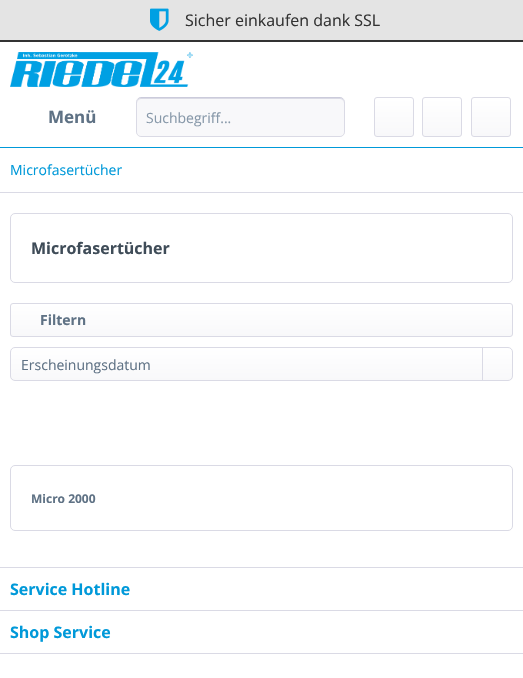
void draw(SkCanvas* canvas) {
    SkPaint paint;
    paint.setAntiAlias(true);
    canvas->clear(0xFFFFFFFF);
    paint.setColor(0xFF0099D9);
    canvas->drawRect(SkRect::MakeXYWH(0, 147, 523, 1), paint);
    paint.setColor(0xFFE4E4E4);
    canvas->drawRect(SkRect::MakeXYWH(0, 0, 523, 40), paint);
    paint.setColor(0xFF333333);
    canvas->drawRect(SkRect::MakeXYWH(0, 40, 523, 2), paint);
    canvas->drawImageRect(SkImages::DeferredFromEncodedData(SkData::MakeFromFileName("img1.png")), SkRect::MakeXYWH(150, 8, 19, 23), SkSamplingOptions());
    SkFont font1(fontMgr->matchFamilyStyle("Open Sans", SkFontStyle::Normal()), 16);
    font1.setSubpixel(true);
    canvas->drawString("Sicher einkaufen dank SSL", 185, 26, font1, paint);
    canvas->drawImageRect(SkImages::DeferredFromEncodedData(SkData::MakeFromFileName("img2.png")), SkRect::MakeXYWH(10, 52, 183, 35), SkSamplingOptions());
    SkFont font2(fontMgr->matchFamilyStyle("Open Sans", SkFontStyle::Bold()), 17);
    font2.setSubpixel(true);
    paint.setColor(0xFF5F7285);
    canvas->drawString("Menü", 48, 123, font2, paint);
    paint.setColor(0xFFF8F8FA);
    canvas->drawRoundRect(SkRect::MakeXYWH(136, 97, 209, 40), 5, 5, paint);
    paint.setColor(0xFFDADAE5);
    canvas->drawPath(SkPathBuilder().moveTo(141, 99).lineTo(340, 99).cubicTo(342, 99, 344, 101, 344, 103).lineTo(344, 102).cubicTo(344, 100, 342, 98, 340, 98).lineTo(141, 98).cubicTo(139, 98, 137, 100, 137, 102).lineTo(137, 103).cubicTo(137, 101, 139, 99, 141, 99).close().detach(), paint);
    paint.setStyle(SkPaint::kStroke_Style);
    paint.setStrokeWidth(1);
    paint.setColor(0xFFCBCBDB);
    canvas->drawPath(SkPathBuilder().moveTo(138, 99).cubicTo(138.5f, 98, 140, 97.5f, 141, 97.5f).lineTo(340, 97.5f).cubicTo(341, 97.5f, 342.5f, 98, 343, 99).detach(), paint);
    paint.setColor(0xFFDADAE5);
    canvas->drawPath(SkPathBuilder().moveTo(343, 99).cubicTo(344, 99.5f, 344.5f, 101, 344.5f, 102).lineTo(344.5f, 132).cubicTo(344.5f, 133, 344, 134.5f, 343, 135).cubicTo(342.5f, 136, 341, 136.5f, 340, 136.5f).lineTo(141, 136.5f).cubicTo(140, 136.5f, 138.5f, 136, 138, 135).cubicTo(137, 134.5f, 136.5f, 133, 136.5f, 132).lineTo(136.5f, 102).cubicTo(136.5f, 101, 137, 99.5f, 138, 99).detach(), paint);
    SkFont font3(fontMgr->matchFamilyStyle("Open Sans", SkFontStyle::Normal()), 14);
    font3.setSubpixel(true);
    paint.setStyle(SkPaint::kFill_Style);
    paint.setColor(0xFF8798A9);
    canvas->drawString("Suchbegriff...", 146, 123, font3, paint);
    canvas->save();
    canvas->clipPath(SkPathBuilder().moveTo(377, 97).lineTo(411, 97).cubicTo(412.5f, 97, 414, 98.5f, 414, 100).lineTo(414, 134).cubicTo(414, 135.5f, 412.5f, 137, 411, 137).lineTo(377, 137).cubicTo(375.5f, 137, 374, 135.5f, 374, 134).lineTo(374, 100).cubicTo(374, 98.5f, 375.5f, 97, 377, 97).close().detach(), true);
    {
        const SkColor colors[] = {0xFFFFFFFF, 0xFFF8F8FA};
        const float stops[] = {0, 1};
        const SkPoint ends[] = {{394, 98}, {394, 136}};
        paint.setShader(SkGradientShader::MakeLinear(ends, colors, stops, 2, SkTileMode::kClamp));
        paint.setAlpha(255);
    }
    canvas->drawRect(SkRect::MakeXYWH(374, 98, 40, 38), paint);
    canvas->restore();
    paint.setStyle(SkPaint::kStroke_Style);
    paint.setShader(nullptr);
    paint.setColor(0xFFDADAE5);
    canvas->drawRoundRect(SkRect::MakeXYWH(374.5f, 97.5f, 39, 39), 2.5f, 2.5f, paint);
    canvas->save();
    canvas->clipPath(SkPathBuilder().moveTo(425, 97).lineTo(459, 97).cubicTo(460.5f, 97, 462, 98.5f, 462, 100).lineTo(462, 134).cubicTo(462, 135.5f, 460.5f, 137, 459, 137).lineTo(425, 137).cubicTo(423.5f, 137, 422, 135.5f, 422, 134).lineTo(422, 100).cubicTo(422, 98.5f, 423.5f, 97, 425, 97).close().detach(), true);
    paint.setStyle(SkPaint::kFill_Style);
    {
        const SkColor colors[] = {0xFFFFFFFF, 0xFFF8F8FA};
        const float stops[] = {0, 1};
        const SkPoint ends[] = {{442, 98}, {442, 136}};
        paint.setShader(SkGradientShader::MakeLinear(ends, colors, stops, 2, SkTileMode::kClamp));
        paint.setAlpha(255);
    }
    canvas->drawRect(SkRect::MakeXYWH(422, 98, 40, 38), paint);
    canvas->restore();
    paint.setStyle(SkPaint::kStroke_Style);
    paint.setShader(nullptr);
    paint.setColor(0xFFDADAE5);
    canvas->drawRoundRect(SkRect::MakeXYWH(422.5f, 97.5f, 39, 39), 2.5f, 2.5f, paint);
    canvas->save();
    canvas->clipPath(SkPathBuilder().moveTo(474, 97).lineTo(508, 97).cubicTo(509.5f, 97, 511, 98.5f, 511, 100).lineTo(511, 134).cubicTo(511, 135.5f, 509.5f, 137, 508, 137).lineTo(474, 137).cubicTo(472.5f, 137, 471, 135.5f, 471, 134).lineTo(471, 100).cubicTo(471, 98.5f, 472.5f, 97, 474, 97).close().detach(), true);
    paint.setStyle(SkPaint::kFill_Style);
    {
        const SkColor colors[] = {0xFFFFFFFF, 0xFFF8F8FA};
        const float stops[] = {0, 1};
        const SkPoint ends[] = {{491, 98}, {491, 136}};
        paint.setShader(SkGradientShader::MakeLinear(ends, colors, stops, 2, SkTileMode::kClamp));
        paint.setAlpha(255);
    }
    canvas->drawRect(SkRect::MakeXYWH(471, 98, 40, 38), paint);
    canvas->restore();
    paint.setStyle(SkPaint::kStroke_Style);
    paint.setShader(nullptr);
    paint.setColor(0xFFDADAE5);
    canvas->drawRoundRect(SkRect::MakeXYWH(471.5f, 97.5f, 39, 39), 2.5f, 2.5f, paint);
    paint.setStyle(SkPaint::kFill_Style);
    canvas->drawRect(SkRect::MakeXYWH(0, 192, 523, 1), paint);
    paint.setColor(0xFF0099D9);
    canvas->drawString("Microfasertücher", 10, 175, font3, paint);
    paint.setStyle(SkPaint::kStroke_Style);
    paint.setColor(0xFFDADAE5);
    canvas->drawRoundRect(SkRect::MakeXYWH(10.5f, 213.5f, 502, 69), 4.5f, 4.5f, paint);
    SkFont font4(fontMgr->matchFamilyStyle("Open Sans", SkFontStyle::Bold()), 16);
    font4.setSubpixel(true);
    paint.setStyle(SkPaint::kFill_Style);
    paint.setColor(0xFF3F4C58);
    canvas->drawString("Microfasertücher", 31, 254, font4, paint);
    canvas->save();
    canvas->clipPath(SkPathBuilder().moveTo(13, 303).lineTo(510, 303).cubicTo(511.5f, 303, 513, 304.5f, 513, 306).lineTo(513, 334).cubicTo(513, 335.5f, 511.5f, 337, 510, 337).lineTo(13, 337).cubicTo(11.5f, 337, 10, 335.5f, 10, 334).lineTo(10, 306).cubicTo(10, 304.5f, 11.5f, 303, 13, 303).close().detach(), true);
    {
        const SkColor colors[] = {0xFFFFFFFF, 0xFFF8F8FA};
        const float stops[] = {0, 1};
        const SkPoint ends[] = {{262, 304}, {262, 336}};
        paint.setShader(SkGradientShader::MakeLinear(ends, colors, stops, 2, SkTileMode::kClamp));
        paint.setAlpha(255);
    }
    canvas->drawRect(SkRect::MakeXYWH(10, 304, 503, 32), paint);
    canvas->restore();
    paint.setStyle(SkPaint::kStroke_Style);
    paint.setShader(nullptr);
    paint.setColor(0xFFDADAE5);
    canvas->drawRoundRect(SkRect::MakeXYWH(10.5f, 303.5f, 502, 33), 2.5f, 2.5f, paint);
    SkFont font5(fontMgr->matchFamilyStyle("Open Sans", SkFontStyle::Bold()), 14);
    font5.setSubpixel(true);
    paint.setStyle(SkPaint::kFill_Style);
    paint.setColor(0xFF5F7285);
    canvas->drawString("Filtern", 40, 325, font5, paint);
    canvas->save();
    canvas->clipPath(SkPathBuilder().moveTo(15, 347).lineTo(508, 347).cubicTo(511, 347, 513, 349, 513, 352).lineTo(513, 376).cubicTo(513, 379, 511, 381, 508, 381).lineTo(15, 381).cubicTo(12, 381, 10, 379, 10, 376).lineTo(10, 352).cubicTo(10, 349, 12, 347, 15, 347).close().detach(), true);
    {
        const SkColor colors[] = {0xFFFFFFFF, 0xFFF8F8FA};
        const float stops[] = {0, 1};
        const SkPoint ends[] = {{262, 348}, {262, 380}};
        paint.setShader(SkGradientShader::MakeLinear(ends, colors, stops, 2, SkTileMode::kClamp));
        paint.setAlpha(255);
    }
    canvas->drawRect(SkRect::MakeXYWH(10, 348, 503, 32), paint);
    canvas->restore();
    paint.setStyle(SkPaint::kStroke_Style);
    paint.setShader(nullptr);
    paint.setColor(0xFFDADAE5);
    canvas->drawRoundRect(SkRect::MakeXYWH(10.5f, 347.5f, 502, 33), 4.5f, 4.5f, paint);
    paint.setStyle(SkPaint::kFill_Style);
    paint.setColor(0xFF5F7285);
    canvas->drawString("Erscheinungsdatum", 21, 370, font3, paint);
    paint.setColor(0xFFDADAE5);
    canvas->drawRect(SkRect::MakeXYWH(482, 348, 1, 33), paint);
    paint.setStyle(SkPaint::kStroke_Style);
    canvas->drawRoundRect(SkRect::MakeXYWH(10.5f, 465.5f, 502, 65), 4.5f, 4.5f, paint);
    SkFont font6(fontMgr->matchFamilyStyle("Open Sans", SkFontStyle::Bold()), 12);
    font6.setSubpixel(true);
    paint.setStyle(SkPaint::kFill_Style);
    paint.setColor(0xFF5F7285);
    canvas->drawString("Micro 2000", 31, 503, font6, paint);
    paint.setColor(0xFFDADAE5);
    canvas->drawRect(SkRect::MakeXYWH(0, 567, 523, 1), paint);
    paint.setColor(0xFF0099D9);
    canvas->drawString("Service Hotline", 10, 595, font4, paint);
    paint.setColor(0xFFDADAE5);
    canvas->drawRect(SkRect::MakeXYWH(0, 610, 523, 1), paint);
    paint.setColor(0xFF0099D9);
    canvas->drawString("Shop Service", 10, 638, font4, paint);
    paint.setColor(0xFFDADAE5);
    canvas->drawRect(SkRect::MakeXYWH(0, 653, 523, 1), paint);
}
